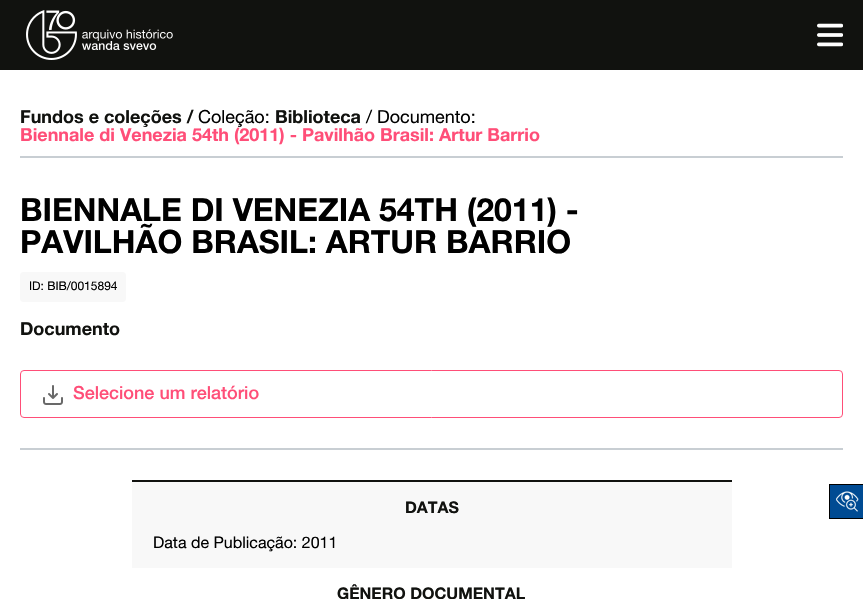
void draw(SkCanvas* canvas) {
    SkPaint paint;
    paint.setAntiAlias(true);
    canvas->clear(0xFFFFFFFF);
    paint.setColor(0xFF11120F);
    canvas->drawRect(SkRect::MakeXYWH(0, 0, 863, 70), paint);
    canvas->drawImageRect(SkImages::DeferredFromEncodedData(SkData::MakeFromFileName("img1.png")), SkRect::MakeXYWH(26, 10, 147, 50), SkSamplingOptions());
    canvas->drawImageRect(SkImages::DeferredFromEncodedData(SkData::MakeFromFileName("img2.png")), SkRect::MakeXYWH(817, 23, 26, 24), SkSamplingOptions());
    SkFont font1(fontMgr->matchFamilyStyle("Helvetica Neue", SkFontStyle::Bold()), 18);
    font1.setSubpixel(true);
    canvas->drawString("Fundos e coleções /", 20, 123, font1, paint);
    SkFont font2(fontMgr->matchFamilyStyle("Helvetica Neue", SkFontStyle::Normal()), 18);
    font2.setSubpixel(true);
    paint.setColor(0xFF000000);
    canvas->drawString("Coleção:", 198, 123, font2, paint);
    paint.setColor(0xFF11120F);
    canvas->drawString("Biblioteca", 275, 123, font1, paint);
    paint.setColor(0xFF000000);
    canvas->drawString("/ Documento:", 366, 123, font2, paint);
    paint.setColor(0xFFFF4E78);
    canvas->drawString("Biennale di Venezia 54th (2011) - Pavilhão Brasil: Artur Barrio", 20, 141, font1, paint);
    paint.setColor(0xFFC8CED3);
    canvas->drawRect(SkRect::MakeXYWH(20, 156, 823, 2), paint);
    SkFont font3(fontMgr->matchFamilyStyle("Helvetica Neue", SkFontStyle::Bold()), 32);
    font3.setSubpixel(true);
    paint.setColor(0xFF000000);
    canvas->drawString("BIENNALE DI VENEZIA 54TH (2011) -", 20, 221, font3, paint);
    canvas->drawString("PAVILHÃO BRASIL: ARTUR BARRIO", 20, 253, font3, paint);
    paint.setColor(0xFFF8F8F8);
    canvas->drawRoundRect(SkRect::MakeXYWH(20, 272, 106, 30), 4, 4, paint);
    SkFont font4(fontMgr->matchFamilyStyle("Helvetica Neue", SkFontStyle::Normal()), 12);
    font4.setSubpixel(true);
    paint.setColor(0xFF000000);
    canvas->drawString("ID: BIB/0015894", 29, 290, font4, paint);
    paint.setColor(0xFFC8CED3);
    canvas->drawRect(SkRect::MakeXYWH(20, 448, 823, 2), paint);
    paint.setColor(0xFF11120F);
    canvas->drawString("Documento", 20, 335, font1, paint);
    paint.setStyle(SkPaint::kStroke_Style);
    paint.setStrokeWidth(1);
    paint.setColor(0xFFFF4E78);
    canvas->drawRoundRect(SkRect::MakeXYWH(20.5f, 370.5f, 822, 47), 3.5f, 3.5f, paint);
    canvas->drawImageRect(SkImages::DeferredFromEncodedData(SkData::MakeFromFileName("img3.png")), SkRect::MakeXYWH(43, 385, 20, 20), SkSamplingOptions());
    SkFont font5(fontMgr->matchFamilyStyle("Helvetica Neue", SkFontStyle(500, SkFontStyle::kNormal_Width, SkFontStyle::kUpright_Slant)), 18);
    font5.setSubpixel(true);
    paint.setStyle(SkPaint::kFill_Style);
    canvas->drawString("Selecione um relatório", 73, 399, font5, paint);
    paint.setColor(0xFF11120F);
    canvas->drawRect(SkRect::MakeXYWH(132, 480, 600, 2), paint);
    paint.setColor(0xFFF8F8F8);
    canvas->drawRect(SkRect::MakeXYWH(132, 482, 600, 86), paint);
    SkFont font6(fontMgr->matchFamilyStyle("Helvetica Neue", SkFontStyle::Bold()), 16);
    font6.setSubpixel(true);
    paint.setColor(0xFF11120F);
    canvas->drawString("DATAS", 405, 513, font6, paint);
    SkFont font7(fontMgr->matchFamilyStyle("Helvetica Neue", SkFontStyle::Normal()), 16);
    font7.setSubpixel(true);
    paint.setColor(0xFF000000);
    canvas->drawString("Data de Publicação: 2011", 153, 548, font7, paint);
    paint.setColor(0xFF11120F);
    canvas->drawString("GÊNERO DOCUMENTAL", 337, 599, font6, paint);
    paint.setColor(0xFF004B93);
    canvas->drawRect(SkRect::MakeXYWH(829.5f, 484.5f, 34, 34), paint);
    paint.setStyle(SkPaint::kStroke_Style);
    paint.setColor(0xFF000000);
    canvas->drawRect(SkRect::MakeXYWH(829.5f, 484.5f, 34, 34), paint);
    canvas->drawImageRect(SkImages::DeferredFromEncodedData(SkData::MakeFromFileName("img4.png")), SkRect::MakeXYWH(836, 491, 23, 21), SkSamplingOptions());
}
